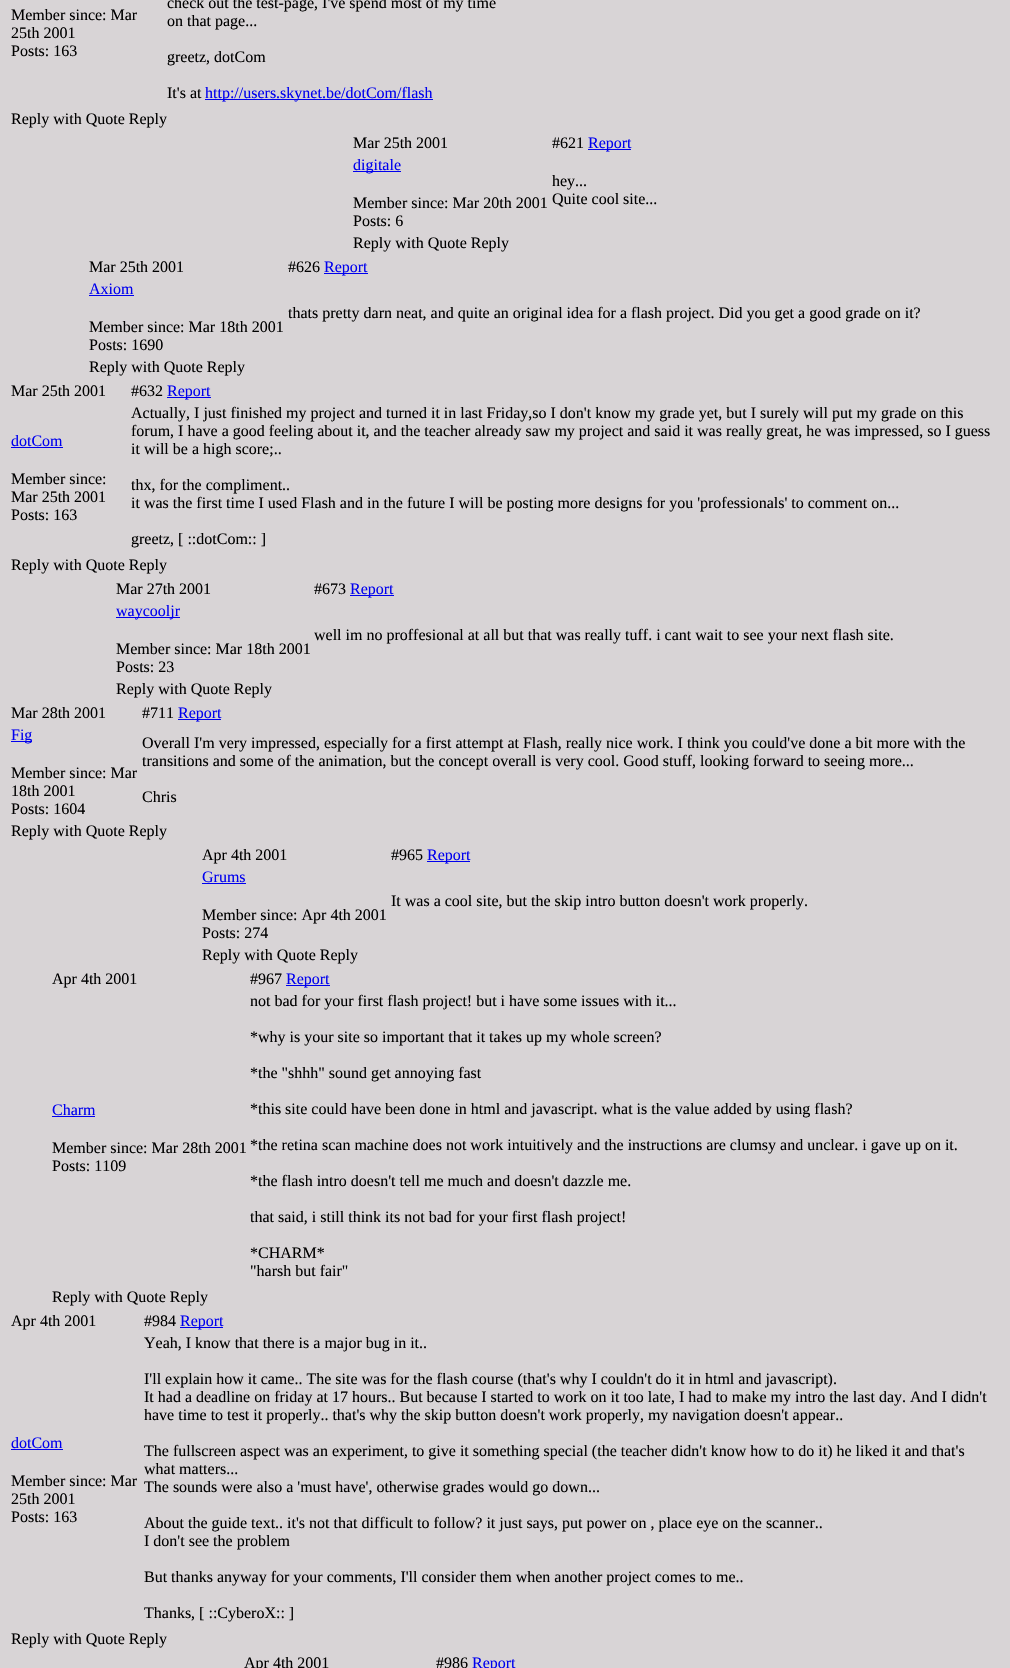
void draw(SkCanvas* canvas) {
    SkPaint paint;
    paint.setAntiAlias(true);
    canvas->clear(0xFFD8D4D6);
    SkFont font1(fontMgr->matchFamilyStyle("Liberation Serif", SkFontStyle::Normal()), 16);
    font1.setSubpixel(true);
    paint.setColor(0xFF000000);
    canvas->drawString("Member since: Mar", 11, 20, font1, paint);
    canvas->drawString("25th 2001", 11, 38, font1, paint);
    canvas->drawString("Posts: 163", 11, 56, font1, paint);
    canvas->drawString("check out the test-page, I've spend most of my time", 167, 8, font1, paint);
    canvas->drawString("on that page...", 167, 26, font1, paint);
    canvas->drawString("greetz, dotCom", 167, 62, font1, paint);
    canvas->drawString("It's at", 167, 98, font1, paint);
    paint.setColor(0xFF0000EE);
    canvas->drawRect(SkRect::MakeXYWH(205, 99, 228, 1), paint);
    canvas->drawString("http://users.skynet.be/dotCom/flash", 205, 98, font1, paint);
    paint.setColor(0xFF000000);
    canvas->drawString("Reply with Quote Reply", 11, 124, font1, paint);
    canvas->drawString("Mar 25th 2001", 353, 148, font1, paint);
    canvas->drawString("#621", 552, 148, font1, paint);
    paint.setColor(0xFF0000EE);
    canvas->drawRect(SkRect::MakeXYWH(588, 149, 43, 1), paint);
    canvas->drawString("Report", 588, 148, font1, paint);
    canvas->drawRect(SkRect::MakeXYWH(353, 171, 48, 1), paint);
    canvas->drawString("digitale", 353, 170, font1, paint);
    paint.setColor(0xFF000000);
    canvas->drawString("Member since: Mar 20th 2001", 353, 208, font1, paint);
    canvas->drawString("Posts: 6", 353, 226, font1, paint);
    canvas->drawString("hey...", 552, 186, font1, paint);
    canvas->drawString("Quite cool site...", 552, 204, font1, paint);
    canvas->drawString("Reply with Quote Reply", 353, 248, font1, paint);
    canvas->drawString("Mar 25th 2001", 89, 272, font1, paint);
    canvas->drawString("#626", 288, 272, font1, paint);
    paint.setColor(0xFF0000EE);
    canvas->drawRect(SkRect::MakeXYWH(324, 273, 44, 1), paint);
    canvas->drawString("Report", 324, 272, font1, paint);
    canvas->drawString("Axiom", 89, 294, font1, paint);
    canvas->drawRect(SkRect::MakeXYWH(89, 295, 45, 1), paint);
    paint.setColor(0xFF000000);
    canvas->drawString("Member since: Mar 18th 2001", 89, 332, font1, paint);
    canvas->drawString("Posts: 1690", 89, 350, font1, paint);
    canvas->drawString("thats pretty darn neat, and quite an original idea for a flash project. Did you get a good grade on it?", 288, 318, font1, paint);
    canvas->drawString("Reply with Quote Reply", 89, 372, font1, paint);
    canvas->drawString("Mar 25th 2001", 11, 396, font1, paint);
    canvas->drawString("#632", 131, 396, font1, paint);
    paint.setColor(0xFF0000EE);
    canvas->drawRect(SkRect::MakeXYWH(167, 397, 44, 1), paint);
    canvas->drawString("Report", 167, 396, font1, paint);
    canvas->drawString("dotCom", 11, 446, font1, paint);
    canvas->drawRect(SkRect::MakeXYWH(11, 447, 52, 1), paint);
    paint.setColor(0xFF000000);
    canvas->drawString("Member since:", 11, 484, font1, paint);
    canvas->drawString("Mar 25th 2001", 11, 502, font1, paint);
    canvas->drawString("Posts: 163", 11, 520, font1, paint);
    canvas->drawString("Actually, I just finished my project and turned it in last Friday,so I don't know my grade yet, but I surely will put my grade on this", 131, 418, font1, paint);
    canvas->drawString("forum, I have a good feeling about it, and the teacher already saw my project and said it was really great, he was impressed, so I guess", 131, 436, font1, paint);
    canvas->drawString("it will be a high score;..", 131, 454, font1, paint);
    canvas->drawString("thx, for the compliment..", 131, 490, font1, paint);
    canvas->drawString("it was the first time I used Flash and in the future I will be posting more designs for you 'professionals' to comment on...", 131, 508, font1, paint);
    canvas->drawString("greetz, [ ::dotCom:: ]", 131, 544, font1, paint);
    canvas->drawString("Reply with Quote Reply", 11, 570, font1, paint);
    canvas->drawString("Mar 27th 2001", 116, 594, font1, paint);
    canvas->drawString("#673", 314, 594, font1, paint);
    paint.setColor(0xFF0000EE);
    canvas->drawRect(SkRect::MakeXYWH(350, 595, 44, 1), paint);
    canvas->drawString("Report", 350, 594, font1, paint);
    canvas->drawRect(SkRect::MakeXYWH(116, 617, 64, 1), paint);
    canvas->drawString("waycooljr", 116, 616, font1, paint);
    paint.setColor(0xFF000000);
    canvas->drawString("Member since: Mar 18th 2001", 116, 654, font1, paint);
    canvas->drawString("Posts: 23", 116, 672, font1, paint);
    canvas->drawString("well im no proffesional at all but that was really tuff. i cant wait to see your next flash site.", 314, 640, font1, paint);
    canvas->drawString("Reply with Quote Reply", 116, 694, font1, paint);
    canvas->drawString("Mar 28th 2001", 11, 718, font1, paint);
    canvas->drawString("#711", 142, 718, font1, paint);
    paint.setColor(0xFF0000EE);
    canvas->drawRect(SkRect::MakeXYWH(178, 719, 43, 1), paint);
    canvas->drawString("Report", 178, 718, font1, paint);
    canvas->drawRect(SkRect::MakeXYWH(11, 741, 21, 1), paint);
    canvas->drawString("Fig", 11, 740, font1, paint);
    paint.setColor(0xFF000000);
    canvas->drawString("Member since: Mar", 11, 778, font1, paint);
    canvas->drawString("18th 2001", 11, 796, font1, paint);
    canvas->drawString("Posts: 1604", 11, 814, font1, paint);
    canvas->drawString("Overall I'm very impressed, especially for a first attempt at Flash, really nice work. I think you could've done a bit more with the", 142, 748, font1, paint);
    canvas->drawString("transitions and some of the animation, but the concept overall is very cool. Good stuff, looking forward to seeing more...", 142, 766, font1, paint);
    canvas->drawString("Chris", 142, 802, font1, paint);
    canvas->drawString("Reply with Quote Reply", 11, 836, font1, paint);
    canvas->drawString("Apr 4th 2001", 202, 860, font1, paint);
    canvas->drawString("#965", 391, 860, font1, paint);
    paint.setColor(0xFF0000EE);
    canvas->drawRect(SkRect::MakeXYWH(427, 861, 43, 1), paint);
    canvas->drawString("Report", 427, 860, font1, paint);
    canvas->drawString("Grums", 202, 882, font1, paint);
    canvas->drawRect(SkRect::MakeXYWH(202, 883, 44, 1), paint);
    paint.setColor(0xFF000000);
    canvas->drawString("Member since: Apr 4th 2001", 202, 920, font1, paint);
    canvas->drawString("Posts: 274", 202, 938, font1, paint);
    canvas->drawString("It was a cool site, but the skip intro button doesn't work properly.", 391, 906, font1, paint);
    canvas->drawString("Reply with Quote Reply", 202, 960, font1, paint);
    canvas->drawString("Apr 4th 2001", 52, 984, font1, paint);
    canvas->drawString("#967", 250, 984, font1, paint);
    paint.setColor(0xFF0000EE);
    canvas->drawRect(SkRect::MakeXYWH(286, 985, 44, 1), paint);
    canvas->drawString("Report", 286, 984, font1, paint);
    canvas->drawString("Charm", 52, 1115, font1, paint);
    canvas->drawRect(SkRect::MakeXYWH(52, 1116, 43, 1), paint);
    paint.setColor(0xFF000000);
    canvas->drawString("Member since: Mar 28th 2001", 52, 1153, font1, paint);
    canvas->drawString("Posts: 1109", 52, 1171, font1, paint);
    canvas->drawString("not bad for your first flash project! but i have some issues with it...", 250, 1006, font1, paint);
    canvas->drawString("*why is your site so important that it takes up my whole screen?", 250, 1042, font1, paint);
    canvas->drawString("*the \"shhh\" sound get annoying fast", 250, 1078, font1, paint);
    canvas->drawString("*this site could have been done in html and javascript. what is the value added by using flash?", 250, 1114, font1, paint);
    canvas->drawString("*the retina scan machine does not work intuitively and the instructions are clumsy and unclear. i gave up on it.", 250, 1150, font1, paint);
    canvas->drawString("*the flash intro doesn't tell me much and doesn't dazzle me.", 250, 1186, font1, paint);
    canvas->drawString("that said, i still think its not bad for your first flash project!", 250, 1222, font1, paint);
    canvas->drawString("*CHARM*", 250, 1258, font1, paint);
    canvas->drawString("\"harsh but fair\"", 250, 1276, font1, paint);
    canvas->drawString("Reply with Quote Reply", 52, 1302, font1, paint);
    canvas->drawString("Apr 4th 2001", 11, 1326, font1, paint);
    canvas->drawString("#984", 144, 1326, font1, paint);
    paint.setColor(0xFF0000EE);
    canvas->drawRect(SkRect::MakeXYWH(180, 1327, 43, 1), paint);
    canvas->drawString("Report", 180, 1326, font1, paint);
    canvas->drawString("dotCom", 11, 1448, font1, paint);
    canvas->drawRect(SkRect::MakeXYWH(11, 1449, 52, 1), paint);
    paint.setColor(0xFF000000);
    canvas->drawString("Member since: Mar", 11, 1486, font1, paint);
    canvas->drawString("25th 2001", 11, 1504, font1, paint);
    canvas->drawString("Posts: 163", 11, 1522, font1, paint);
    canvas->drawString("Yeah, I know that there is a major bug in it..", 144, 1348, font1, paint);
    canvas->drawString("I'll explain how it came.. The site was for the flash course (that's why I couldn't do it in html and javascript).", 144, 1384, font1, paint);
    canvas->drawString("It had a deadline on friday at 17 hours.. But because I started to work on it too late, I had to make my intro the last day. And I didn't", 144, 1402, font1, paint);
    canvas->drawString("have time to test it properly.. that's why the skip button doesn't work properly, my navigation doesn't appear..", 144, 1420, font1, paint);
    canvas->drawString("The fullscreen aspect was an experiment, to give it something special (the teacher didn't know how to do it) he liked it and that's", 144, 1456, font1, paint);
    canvas->drawString("what matters...", 144, 1474, font1, paint);
    canvas->drawString("The sounds were also a 'must have', otherwise grades would go down...", 144, 1492, font1, paint);
    canvas->drawString("About the guide text.. it's not that difficult to follow? it just says, put power on , place eye on the scanner..", 144, 1528, font1, paint);
    canvas->drawString("I don't see the problem", 144, 1546, font1, paint);
    canvas->drawString("But thanks anyway for your comments, I'll consider them when another project comes to me..", 144, 1582, font1, paint);
    canvas->drawString("Thanks, [ ::CyberoX:: ]", 144, 1618, font1, paint);
    canvas->drawString("Reply with Quote Reply", 11, 1644, font1, paint);
    canvas->drawString("Apr 4th 2001", 244, 1668, font1, paint);
    canvas->drawString("#986", 436, 1668, font1, paint);
    paint.setColor(0xFF0000EE);
    canvas->drawString("Report", 472, 1668, font1, paint);
}
